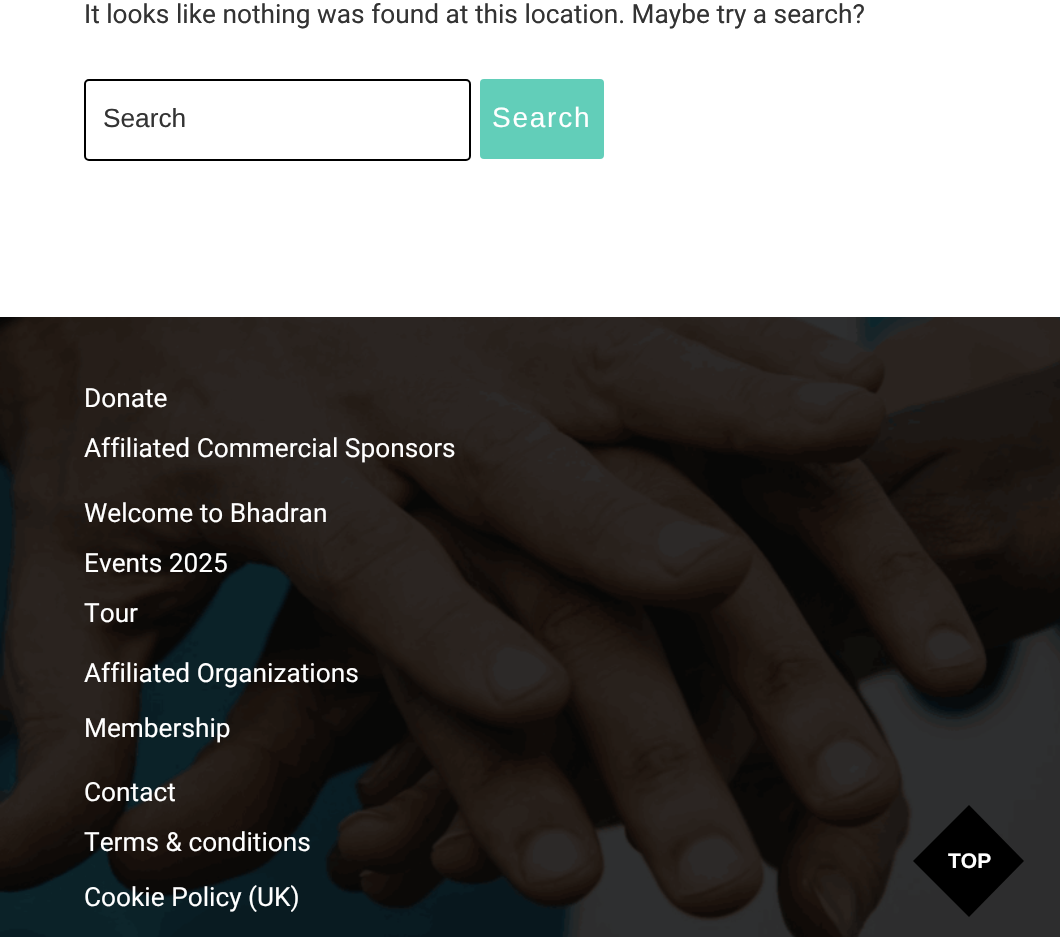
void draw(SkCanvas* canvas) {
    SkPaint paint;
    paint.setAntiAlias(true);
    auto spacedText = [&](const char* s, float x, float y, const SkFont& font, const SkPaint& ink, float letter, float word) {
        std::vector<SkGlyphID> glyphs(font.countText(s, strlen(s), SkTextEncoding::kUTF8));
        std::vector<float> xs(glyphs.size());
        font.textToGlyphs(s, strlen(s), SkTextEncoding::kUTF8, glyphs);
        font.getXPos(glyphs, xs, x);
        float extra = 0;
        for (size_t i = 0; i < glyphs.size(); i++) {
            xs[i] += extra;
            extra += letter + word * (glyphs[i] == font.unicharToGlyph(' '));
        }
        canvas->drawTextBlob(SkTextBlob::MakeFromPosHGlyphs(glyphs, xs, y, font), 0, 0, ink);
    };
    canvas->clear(0xFFFFFFFF);
    SkFont font1(fontMgr->matchFamilyStyle("Roboto", SkFontStyle::Normal()), 26.25f);
    font1.setSubpixel(true);
    paint.setColor(0xFF333333);
    canvas->drawString("It looks like nothing was found at this location. Maybe try a search?", 84, 23, font1, paint);
    paint.setStyle(SkPaint::kStroke_Style);
    paint.setStrokeWidth(2);
    paint.setColor(0xFF000000);
    canvas->drawRoundRect(SkRect::MakeXYWH(85, 80, 385, 80), 4, 4, paint);
    SkFont font2(fontMgr->matchFamilyStyle("Liberation Sans", SkFontStyle::Normal()), 26.25f);
    font2.setSubpixel(true);
    paint.setStyle(SkPaint::kFill_Style);
    paint.setColor(0xFF333333);
    canvas->drawString("Search", 103, 127, font2, paint);
    paint.setColor(0xFF62CEB9);
    canvas->drawRoundRect(SkRect::MakeXYWH(480, 79, 124, 80), 4, 4, paint);
    SkFont font3(fontMgr->matchFamilyStyle("Liberation Sans", SkFontStyle::Normal()), 28);
    font3.setSubpixel(true);
    paint.setColor(0xFFFFFFFF);
    spacedText("Search", 492, 127, font3, paint, 1.75f, 0);
    canvas->drawImageRect(SkImages::DeferredFromEncodedData(SkData::MakeFromFileName("img1.png")), SkRect::MakeXYWH(0, 317, 1060, 620), SkSamplingOptions());
    canvas->drawString("Donate", 84, 407, font1, paint);
    canvas->drawString("Affiliated Commercial Sponsors", 84, 457, font1, paint);
    canvas->drawString("Welcome to Bhadran", 84, 522, font1, paint);
    canvas->drawString("Events 2025", 84, 572, font1, paint);
    canvas->drawString("Tour", 84, 622, font1, paint);
    canvas->drawString("Affiliated Organizations", 84, 682, font1, paint);
    canvas->drawString("Membership", 84, 737, font1, paint);
    canvas->drawString("Contact", 84, 801, font1, paint);
    canvas->drawString("Terms & conditions", 84, 851, font1, paint);
    canvas->drawString("Cookie Policy (UK)", 84, 906, font1, paint);
    paint.setColor(0xFF000000);
    canvas->drawPath(SkPathBuilder().moveTo(913, 861).lineTo(969, 805).lineTo(1024, 861).lineTo(969, 917).close().detach(), paint);
    SkFont font4(fontMgr->matchFamilyStyle("Liberation Sans", SkFontStyle::Bold()), 21);
    font4.setSubpixel(true);
    paint.setColor(0xFFFFFFFF);
    canvas->drawString("TOP", 948, 868, font4, paint);
}
